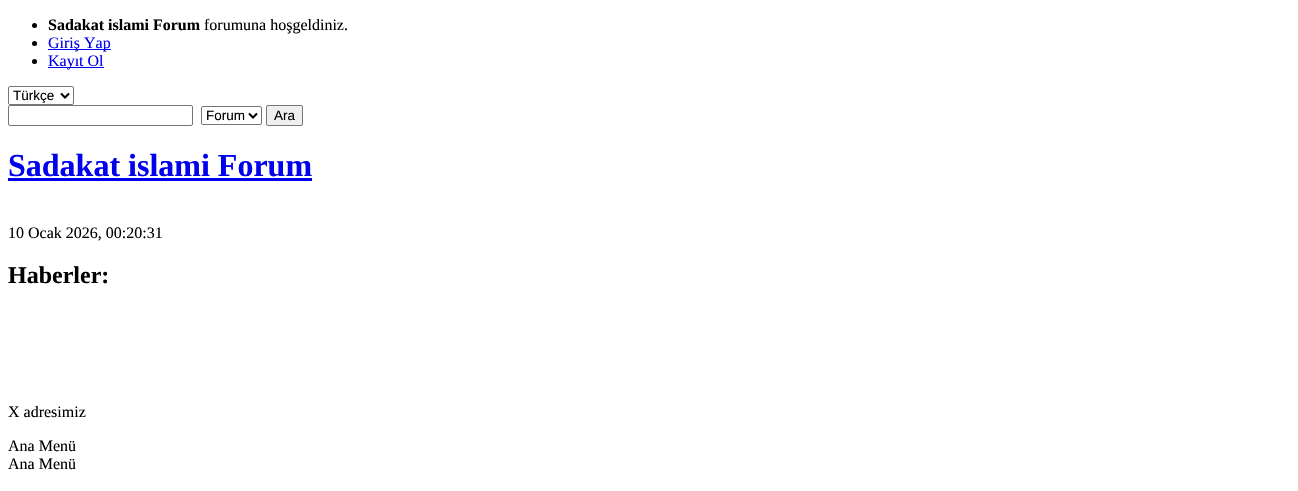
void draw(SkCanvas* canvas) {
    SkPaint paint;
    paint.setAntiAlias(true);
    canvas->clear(0xFFFFFFFF);
    paint.setColor(0xFF000000);
    canvas->drawCircle(34.5f, 25.5f, 2.5f, paint);
    SkFont font1(fontMgr->matchFamilyStyle("Liberation Serif", SkFontStyle::Bold()), 16);
    font1.setSubpixel(true);
    canvas->drawString("Sadakat islami Forum", 48, 30, font1, paint);
    SkFont font2(fontMgr->matchFamilyStyle("Liberation Serif", SkFontStyle::Normal()), 16);
    font2.setSubpixel(true);
    canvas->drawString("forumuna hoşgeldiniz.", 204, 30, font2, paint);
    canvas->drawCircle(34.5f, 43.5f, 2.5f, paint);
    paint.setColor(0xFF0000EE);
    canvas->drawRect(SkRect::MakeXYWH(48, 49, 63, 1), paint);
    canvas->drawString("Giriş Yap", 48, 48, font2, paint);
    paint.setColor(0xFF000000);
    canvas->drawCircle(34.5f, 61.5f, 2.5f, paint);
    paint.setColor(0xFF0000EE);
    canvas->drawRect(SkRect::MakeXYWH(48, 67, 56, 1), paint);
    canvas->drawString("Kayıt Ol", 48, 66, font2, paint);
    paint.setStyle(SkPaint::kStroke_Style);
    paint.setStrokeWidth(1);
    paint.setColor(0xFF767676);
    canvas->drawRoundRect(SkRect::MakeXYWH(8.5f, 86.5f, 65, 18), 1.5f, 1.5f, paint);
    paint.setStrokeWidth(2);
    paint.setColor(0xFF000000);
    canvas->drawPath(SkPathBuilder().moveTo(61, 93.5f).lineTo(65, 97.5f).lineTo(69, 93.5f).detach(), paint);
    SkFont font3(fontMgr->matchFamilyStyle("Liberation Sans", SkFontStyle::Normal()), 13.5f);
    font3.setSubpixel(true);
    paint.setStyle(SkPaint::kFill_Style);
    canvas->drawString("Türkçe", 13, 100, font3, paint);
    paint.setStyle(SkPaint::kStroke_Style);
    paint.setStrokeWidth(1);
    paint.setColor(0xFF767676);
    canvas->drawRoundRect(SkRect::MakeXYWH(8.5f, 105.5f, 184, 20), 1.5f, 1.5f, paint);
    canvas->drawRoundRect(SkRect::MakeXYWH(201.5f, 106.5f, 60, 18), 1.5f, 1.5f, paint);
    paint.setStrokeWidth(2);
    paint.setColor(0xFF000000);
    canvas->drawPath(SkPathBuilder().moveTo(249, 113.5f).lineTo(253, 117.5f).lineTo(257, 113.5f).detach(), paint);
    paint.setStyle(SkPaint::kFill_Style);
    canvas->drawString("Forum", 206, 120, font3, paint);
    paint.setColor(0xFFEFEFEF);
    canvas->drawRoundRect(SkRect::MakeXYWH(266.5f, 105.5f, 36, 20), 1.5f, 1.5f, paint);
    paint.setStyle(SkPaint::kStroke_Style);
    paint.setStrokeWidth(1);
    paint.setColor(0xFF767676);
    canvas->drawRoundRect(SkRect::MakeXYWH(266.5f, 105.5f, 36, 20), 1.5f, 1.5f, paint);
    paint.setStyle(SkPaint::kFill_Style);
    paint.setColor(0xFF000000);
    canvas->drawString("Ara", 274, 120, font3, paint);
    SkFont font4(fontMgr->matchFamilyStyle("Liberation Serif", SkFontStyle::Bold()), 32);
    font4.setSubpixel(true);
    paint.setColor(0xFF0000EE);
    canvas->drawString("Sadakat islami Forum", 8, 176, font4, paint);
    canvas->drawRect(SkRect::MakeXYWH(8, 178, 304, 3), paint);
    paint.setColor(0xFF000000);
    canvas->drawString("10 Ocak 2026, 00:20:31", 8, 238, font2, paint);
    SkFont font5(fontMgr->matchFamilyStyle("Liberation Serif", SkFontStyle::Bold()), 24);
    font5.setSubpixel(true);
    canvas->drawString("Haberler:", 8, 283, font5, paint);
    canvas->drawString("X adresimiz", 8, 417, font2, paint);
    canvas->drawString("Ana Menü", 8, 451, font2, paint);
    canvas->drawString("Ana Menü", 8, 469, font2, paint);
}
